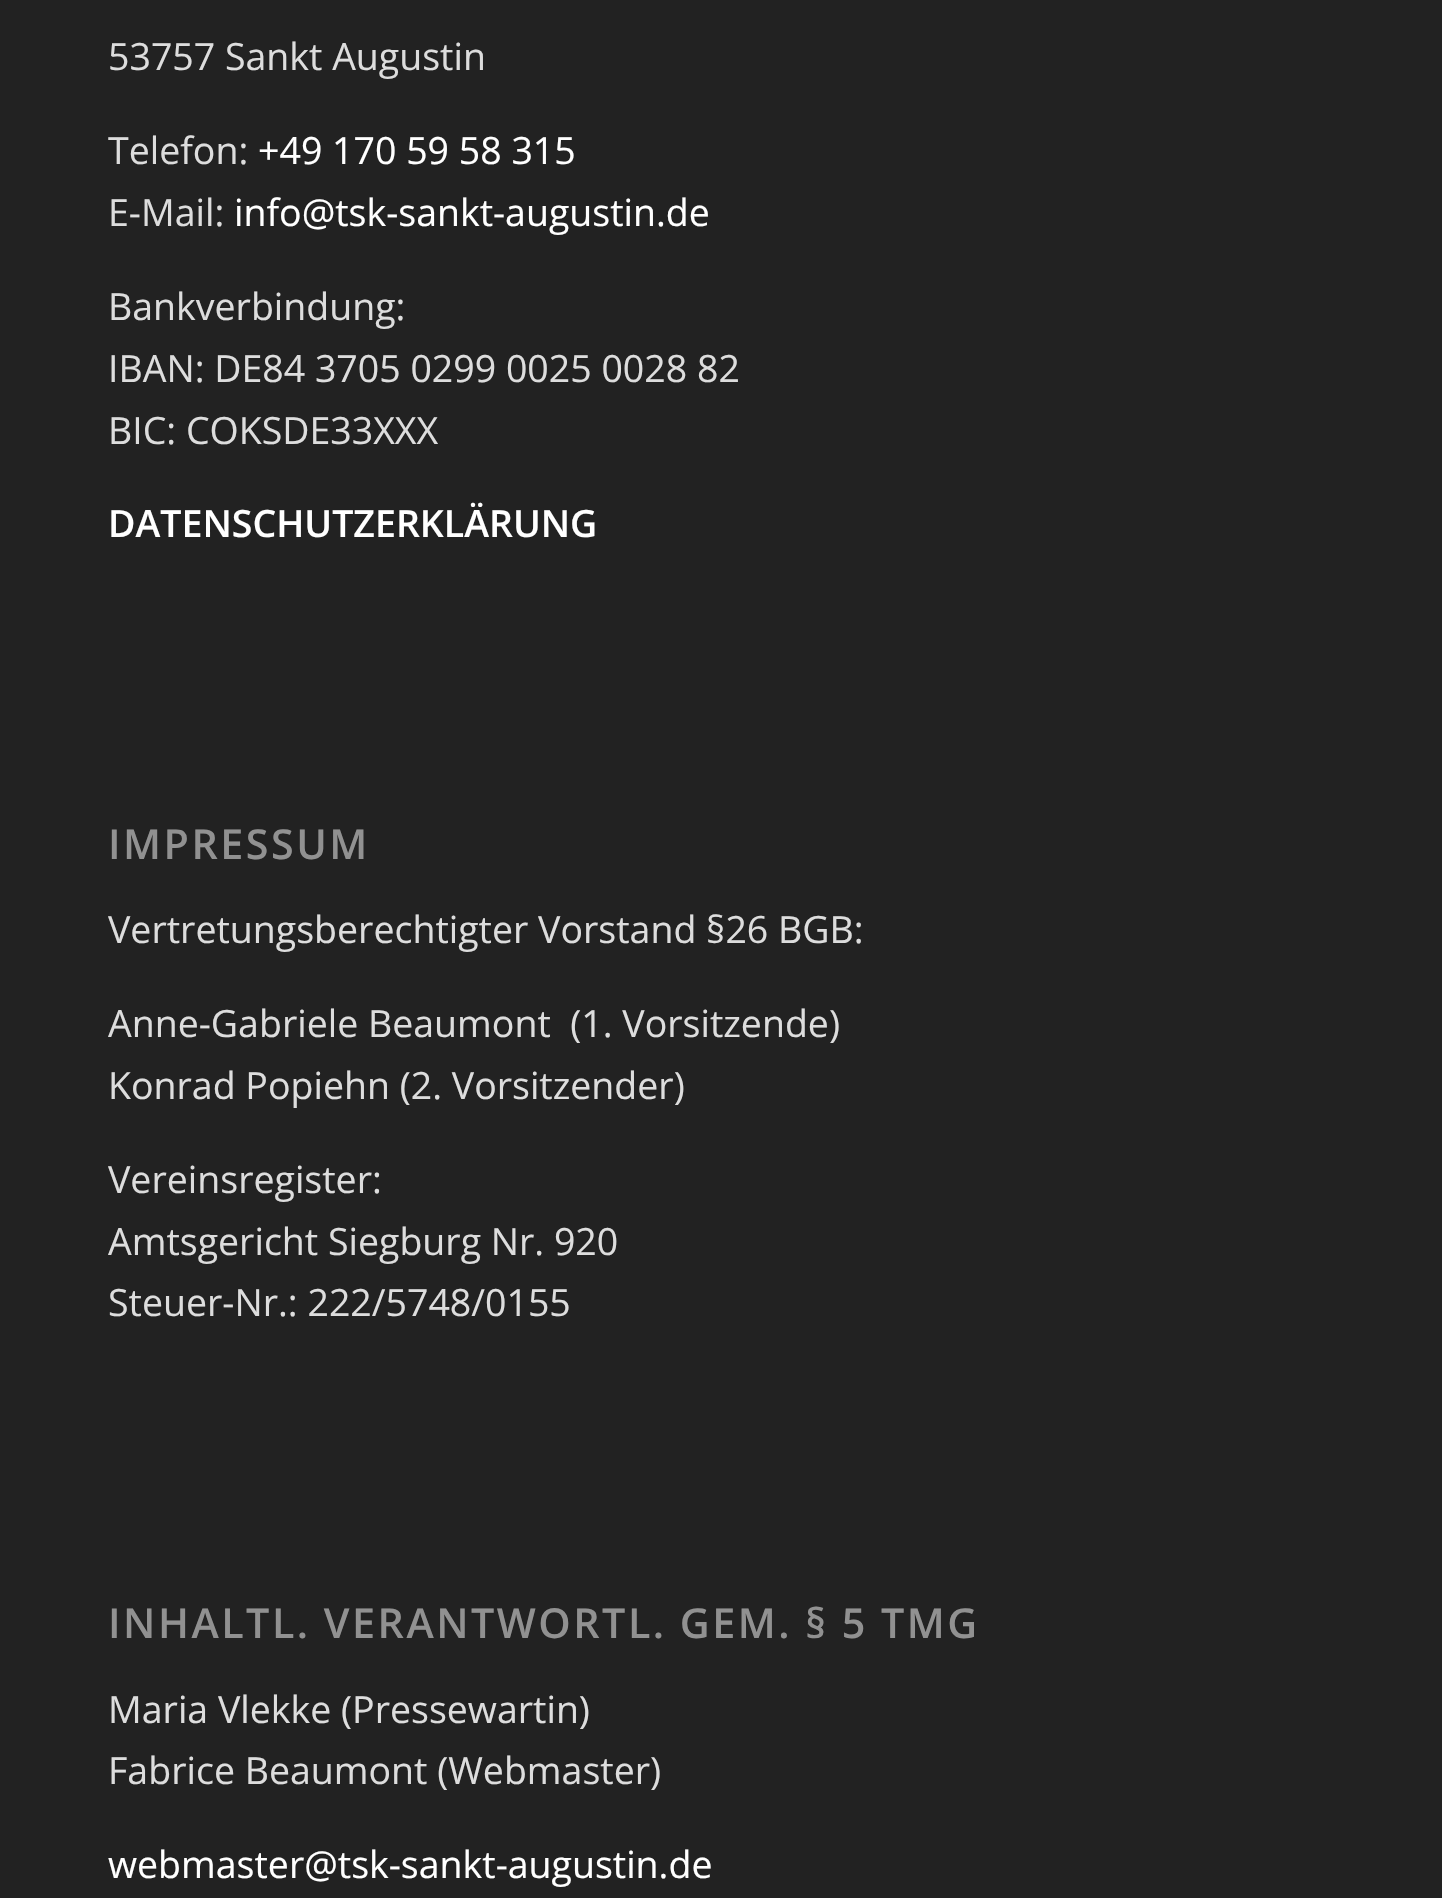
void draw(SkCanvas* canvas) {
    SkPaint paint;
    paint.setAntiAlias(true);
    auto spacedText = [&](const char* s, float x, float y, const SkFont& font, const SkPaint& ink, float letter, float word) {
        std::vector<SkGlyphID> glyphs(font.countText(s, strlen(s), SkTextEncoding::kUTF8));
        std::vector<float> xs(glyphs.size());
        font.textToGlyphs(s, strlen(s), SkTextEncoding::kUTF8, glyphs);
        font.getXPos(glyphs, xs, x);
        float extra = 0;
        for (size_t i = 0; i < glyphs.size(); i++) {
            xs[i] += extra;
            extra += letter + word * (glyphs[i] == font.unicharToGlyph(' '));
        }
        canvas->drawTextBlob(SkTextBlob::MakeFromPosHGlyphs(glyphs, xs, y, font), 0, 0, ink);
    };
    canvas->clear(0xFF222222);
    SkFont font1(fontMgr->matchFamilyStyle("Open Sans", SkFontStyle::Normal()), 37.5f);
    font1.setSubpixel(true);
    paint.setColor(0xFFDDDDDD);
    canvas->drawString("53757 Sankt Augustin", 108, 70, font1, paint);
    canvas->drawString("Telefon:", 108, 164, font1, paint);
    paint.setColor(0xFFFFFFFF);
    canvas->drawString("+49 170 59 58 315", 258, 164, font1, paint);
    paint.setColor(0xFFDDDDDD);
    canvas->drawString("E-Mail:", 108, 226, font1, paint);
    paint.setColor(0xFFFFFFFF);
    canvas->drawString("info@tsk-sankt-augustin.de", 234, 226, font1, paint);
    paint.setColor(0xFFDDDDDD);
    canvas->drawString("Bankverbindung:", 108, 320, font1, paint);
    canvas->drawString("IBAN: DE84 3705 0299 0025 0028 82", 108, 382, font1, paint);
    canvas->drawString("BIC: COKSDE33XXX", 108, 444, font1, paint);
    SkFont font2(fontMgr->matchFamilyStyle("Open Sans", SkFontStyle(600, SkFontStyle::kNormal_Width, SkFontStyle::kUpright_Slant)), 37.5f);
    font2.setSubpixel(true);
    paint.setColor(0xFFFFFFFF);
    canvas->drawString("DATENSCHUTZERKLÄRUNG", 108, 537, font2, paint);
    SkFont font3(fontMgr->matchFamilyStyle("Open Sans", SkFontStyle(600, SkFontStyle::kNormal_Width, SkFontStyle::kUpright_Slant)), 41.25f);
    font3.setSubpixel(true);
    paint.setColor(0xFF919191);
    spacedText("IMPRESSUM", 108, 859, font3, paint, 2.5f, 0);
    paint.setColor(0xFFDDDDDD);
    canvas->drawString("Vertretungsberechtigter Vorstand §26 BGB:", 108, 943, font1, paint);
    canvas->drawString("Anne-Gabriele Beaumont  (1. Vorsitzende)", 108, 1037, font1, paint);
    canvas->drawString("Konrad Popiehn (2. Vorsitzender)", 108, 1099, font1, paint);
    canvas->drawString("Vereinsregister:", 108, 1193, font1, paint);
    canvas->drawString("Amtsgericht Siegburg Nr. 920", 108, 1255, font1, paint);
    canvas->drawString("Steuer-Nr.: 222/5748/0155", 108, 1316, font1, paint);
    paint.setColor(0xFF919191);
    spacedText("INHALTL. VERANTWORTL. GEM. § 5 TMG", 108, 1638, font3, paint, 2.5f, 0);
    paint.setColor(0xFFDDDDDD);
    canvas->drawString("Maria Vlekke (Pressewartin)", 108, 1723, font1, paint);
    canvas->drawString("Fabrice Beaumont (Webmaster)", 108, 1784, font1, paint);
    paint.setColor(0xFFFFFFFF);
    canvas->drawString("webmaster@tsk-sankt-augustin.de", 108, 1878, font1, paint);
}
